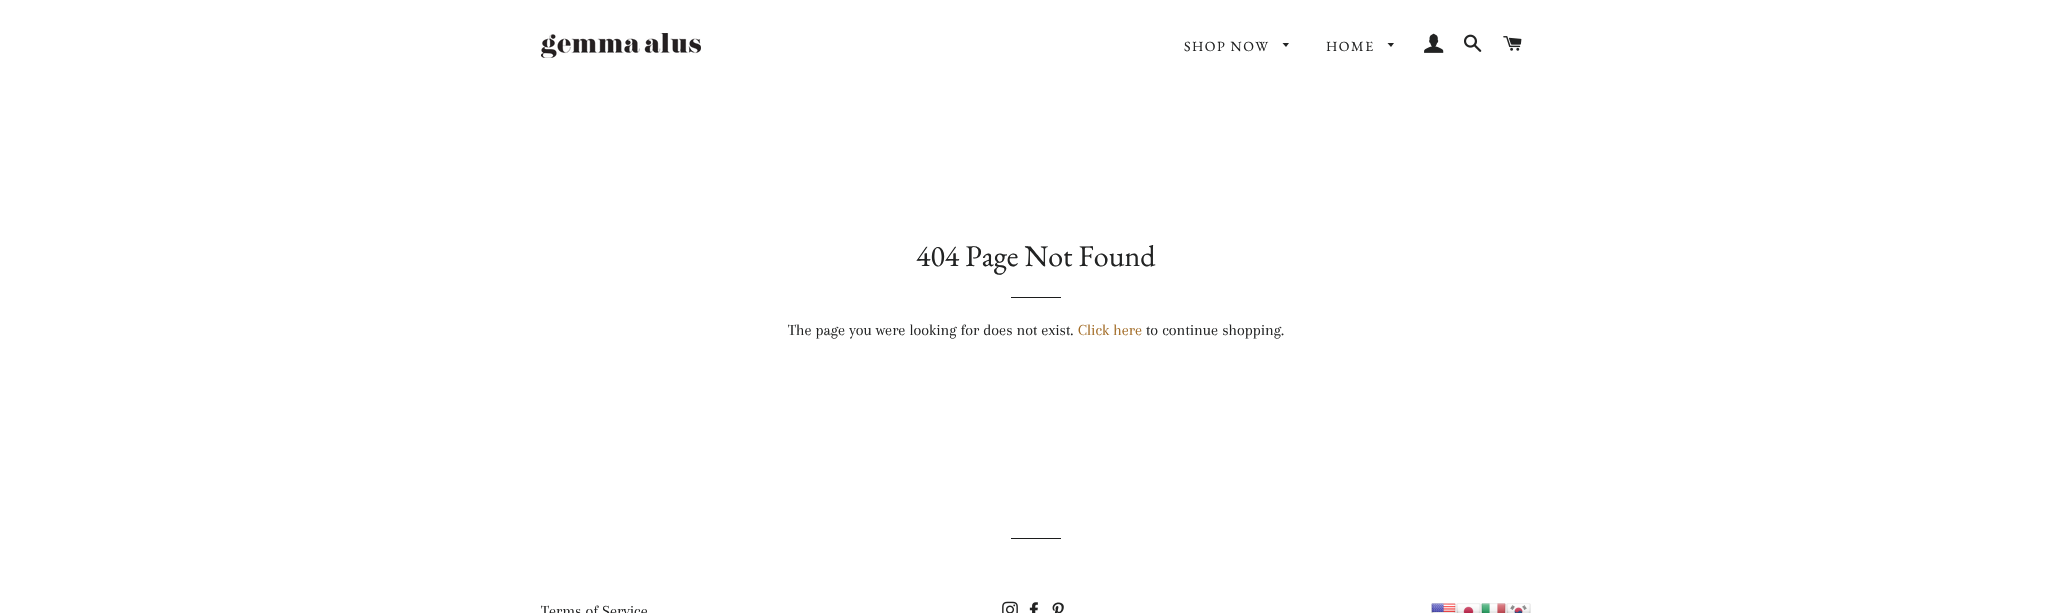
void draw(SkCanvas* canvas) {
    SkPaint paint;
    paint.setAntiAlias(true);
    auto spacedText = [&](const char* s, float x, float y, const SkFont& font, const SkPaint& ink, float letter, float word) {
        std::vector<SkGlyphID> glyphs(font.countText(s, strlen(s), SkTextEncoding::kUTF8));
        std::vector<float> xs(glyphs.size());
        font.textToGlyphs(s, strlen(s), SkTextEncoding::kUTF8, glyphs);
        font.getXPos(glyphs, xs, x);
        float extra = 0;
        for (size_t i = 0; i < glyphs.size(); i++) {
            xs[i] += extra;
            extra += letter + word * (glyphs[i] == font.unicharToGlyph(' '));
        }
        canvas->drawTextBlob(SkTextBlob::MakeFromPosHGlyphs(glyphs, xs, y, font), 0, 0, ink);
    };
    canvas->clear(0xFFFFFFFF);
    canvas->drawImageRect(SkImages::DeferredFromEncodedData(SkData::MakeFromFileName("img1.png")), SkRect::MakeXYWH(541, 33, 160, 25), SkSamplingOptions());
    SkFont font1(fontMgr->matchFamilyStyle("EB Garamond", SkFontStyle::Normal()), 14);
    font1.setSubpixel(true);
    paint.setColor(0xFF222323);
    spacedText("SHOP NOW", 1184, 51, font1, paint, 1.5f, 0);
    canvas->drawPath(SkPathBuilder().moveTo(1282.5f, 43).lineTo(1286, 47).lineTo(1289, 43).close().detach(), paint);
    spacedText("HOME", 1326, 51, font1, paint, 1.5f, 0);
    canvas->drawPath(SkPathBuilder().moveTo(1387.5f, 43).lineTo(1391, 47).lineTo(1394, 43).close().detach(), paint);
    canvas->drawImageRect(SkImages::DeferredFromEncodedData(SkData::MakeFromFileName("img2.png")), SkRect::MakeXYWH(1424, 33, 20, 20), SkSamplingOptions());
    canvas->drawImageRect(SkImages::DeferredFromEncodedData(SkData::MakeFromFileName("img3.png")), SkRect::MakeXYWH(1464, 34, 18, 18), SkSamplingOptions());
    canvas->drawImageRect(SkImages::DeferredFromEncodedData(SkData::MakeFromFileName("img4.png")), SkRect::MakeXYWH(1503, 36, 19, 15), SkSamplingOptions());
    SkFont font2(fontMgr->matchFamilyStyle("EB Garamond", SkFontStyle::Normal()), 30);
    font2.setSubpixel(true);
    canvas->drawString("404 Page Not Found", 916, 266, font2, paint);
    paint.setColor(0xFF1C1D1D);
    canvas->drawRect(SkRect::MakeXYWH(1011, 297, 50, 1), paint);
    SkFont font3(fontMgr->matchFamilyStyle("Arapey", SkFontStyle::Normal()), 16);
    font3.setSubpixel(true);
    paint.setColor(0xFF222323);
    canvas->drawString("The page you were looking for does not exist.", 788, 335, font3, paint);
    paint.setColor(0xFFA26B25);
    canvas->drawString("Click here", 1078, 335, font3, paint);
    paint.setColor(0xFF222323);
    canvas->drawString("to continue shopping.", 1146, 335, font3, paint);
    paint.setColor(0xFF1C1D1D);
    canvas->drawRect(SkRect::MakeXYWH(1011, 538, 50, 1), paint);
    paint.setColor(0xFF222323);
    canvas->drawString("Terms of Service", 541, 616, font3, paint);
    canvas->drawImageRect(SkImages::DeferredFromEncodedData(SkData::MakeFromFileName("img5.png")), SkRect::MakeXYWH(1002, 601, 16, 12), SkSamplingOptions());
    canvas->drawImageRect(SkImages::DeferredFromEncodedData(SkData::MakeFromFileName("img6.png")), SkRect::MakeXYWH(1029, 602, 9, 11), SkSamplingOptions());
    canvas->drawImageRect(SkImages::DeferredFromEncodedData(SkData::MakeFromFileName("img7.png")), SkRect::MakeXYWH(1052, 602, 12, 11), SkSamplingOptions());
    canvas->drawImageRect(SkImages::DeferredFromEncodedData(SkData::MakeFromFileName("img8.png")), SkRect::MakeXYWH(1431, 603, 25, 10), SkSamplingOptions());
    canvas->drawImageRect(SkImages::DeferredFromEncodedData(SkData::MakeFromFileName("img9.png")), SkRect::MakeXYWH(1456, 603, 25, 10), SkSamplingOptions());
    canvas->drawImageRect(SkImages::DeferredFromEncodedData(SkData::MakeFromFileName("img10.png")), SkRect::MakeXYWH(1481, 603, 25, 10), SkSamplingOptions());
    canvas->drawImageRect(SkImages::DeferredFromEncodedData(SkData::MakeFromFileName("img11.png")), SkRect::MakeXYWH(1506, 603, 25, 10), SkSamplingOptions());
}
